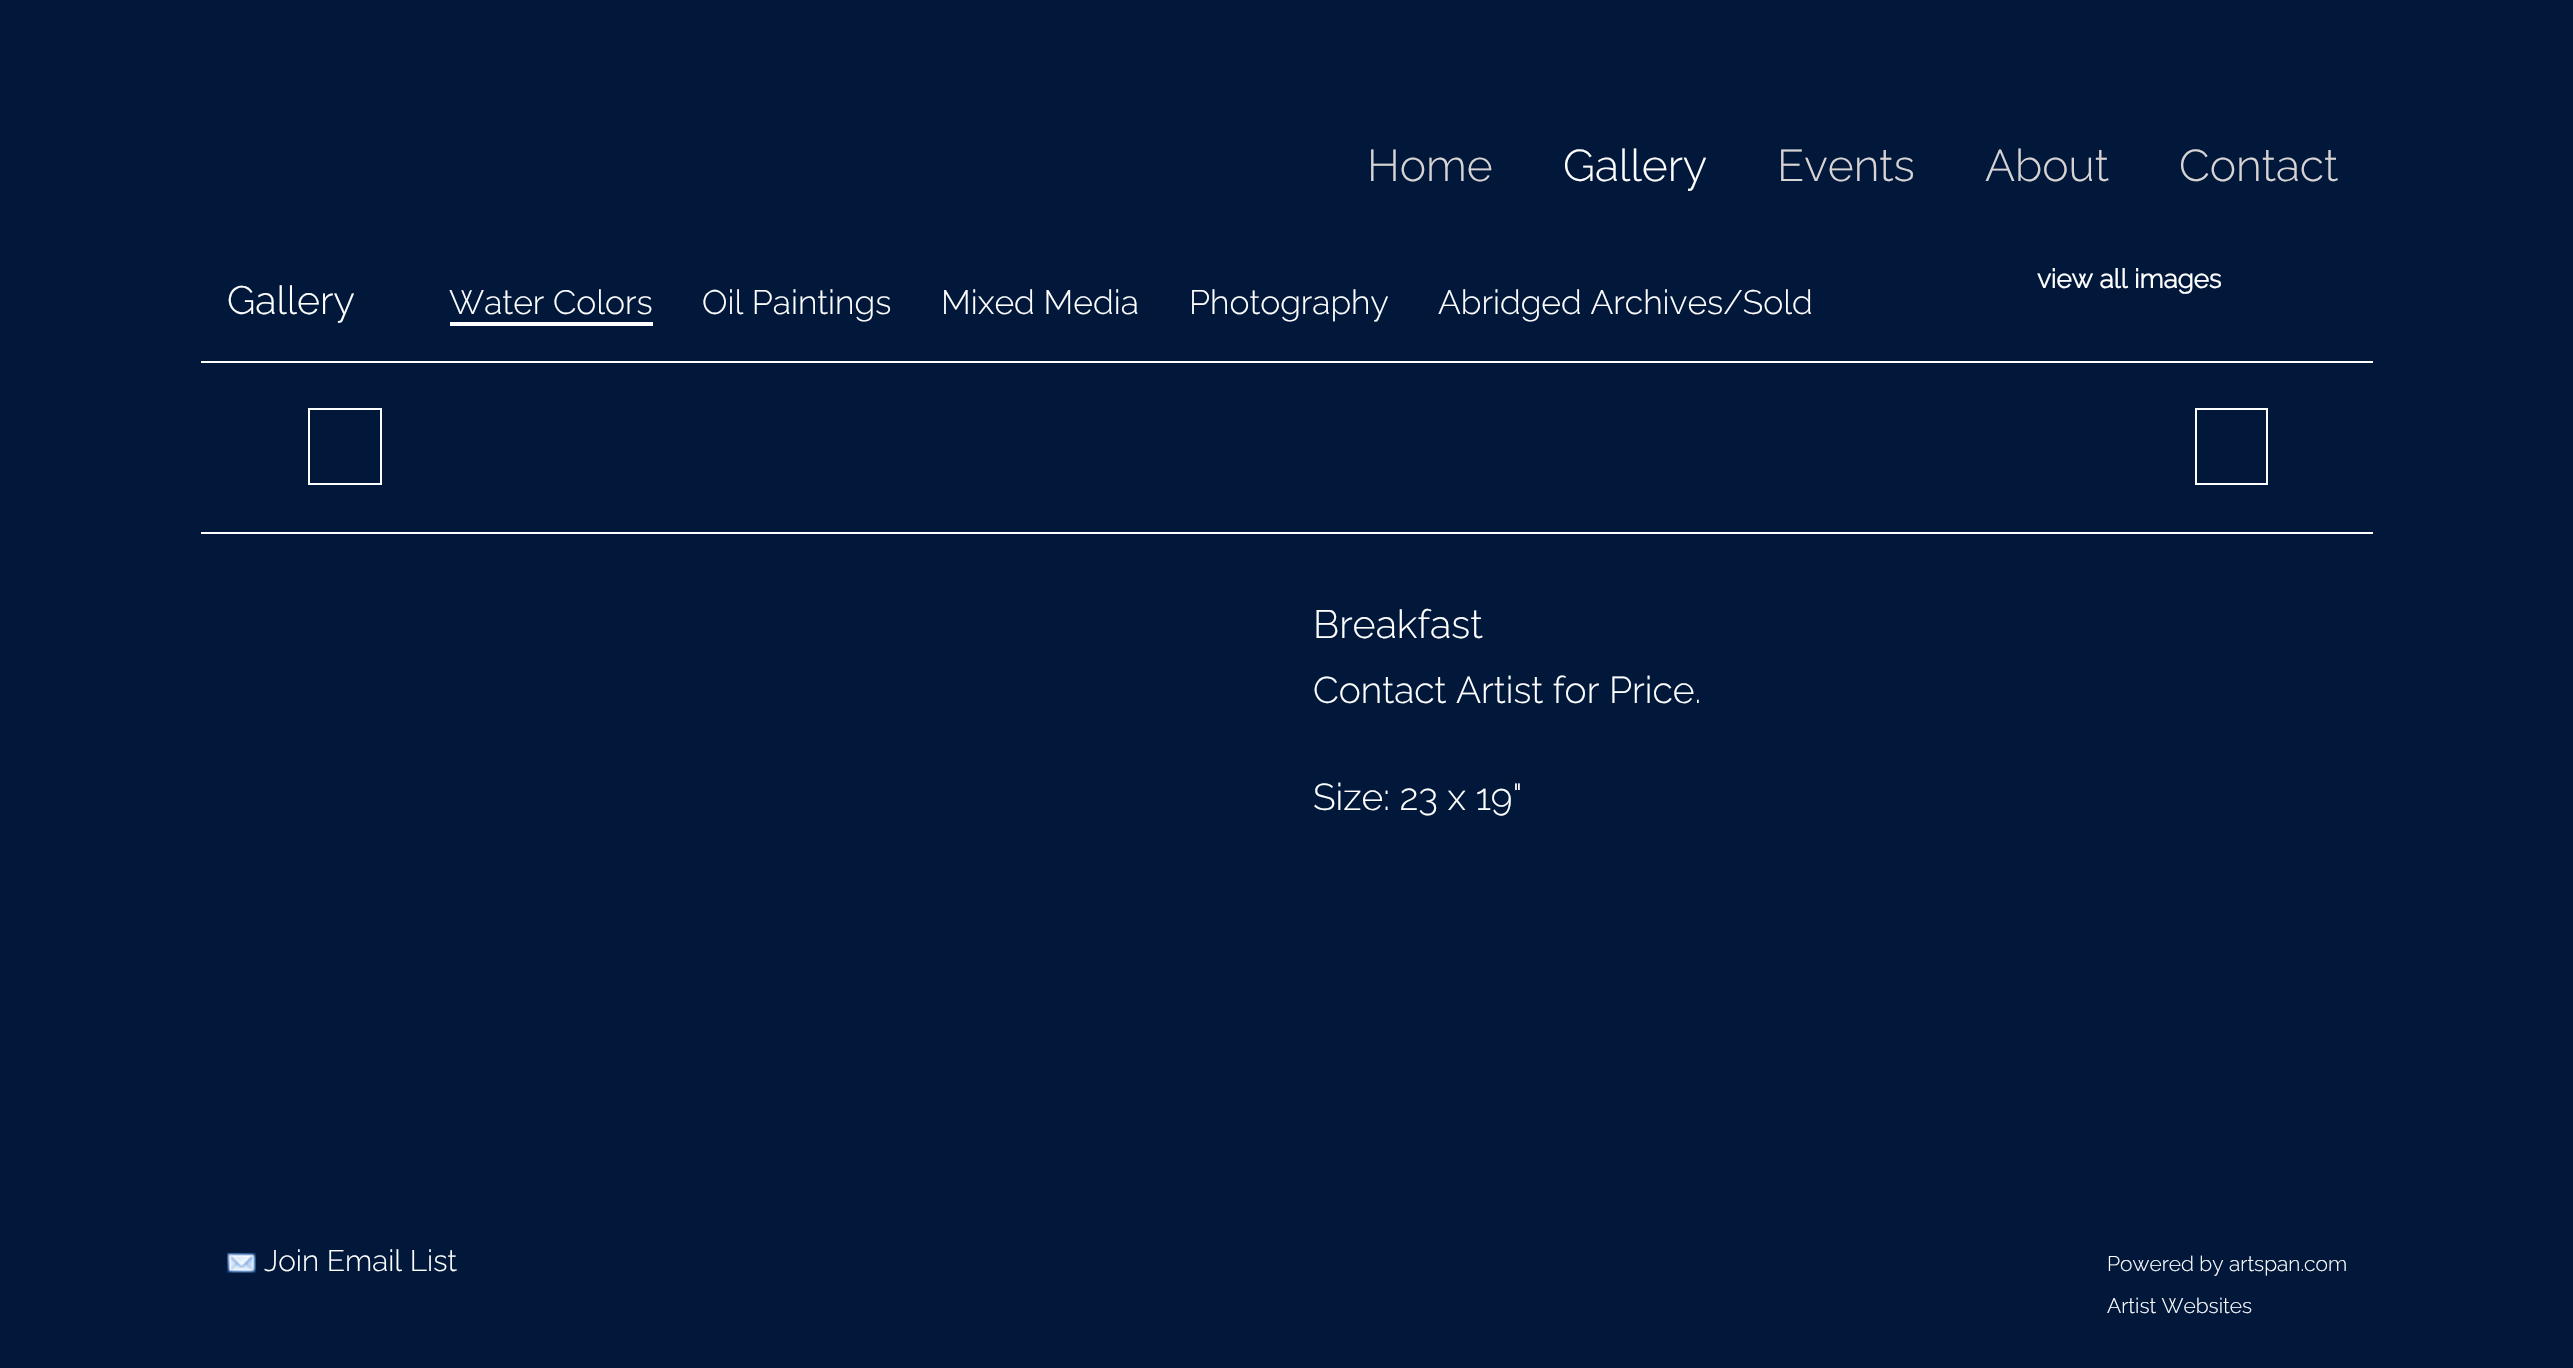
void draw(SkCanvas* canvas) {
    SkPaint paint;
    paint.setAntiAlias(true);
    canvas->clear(0xFF01183B);
    SkFont font1(fontMgr->matchFamilyStyle("Raleway", SkFontStyle(100, SkFontStyle::kNormal_Width, SkFontStyle::kUpright_Slant)), 44.5f);
    font1.setSubpixel(true);
    paint.setColor(0xFFD8D4D4);
    canvas->drawString("Home", 1367, 181, font1, paint);
    paint.setColor(0xFFFFFFFF);
    canvas->drawString("Gallery", 1563, 181, font1, paint);
    paint.setColor(0xFFD8D4D4);
    canvas->drawString("Events", 1777, 181, font1, paint);
    canvas->drawString("About", 1985, 181, font1, paint);
    canvas->drawString("Contact", 2179, 181, font1, paint);
    SkFont font2(fontMgr->matchFamilyStyle("Raleway", SkFontStyle::Bold()), 26.25f);
    font2.setSubpixel(true);
    paint.setColor(0xFFFFFFFF);
    canvas->drawString("view all images", 2037, 288, font2, paint);
    SkFont font3(fontMgr->matchFamilyStyle("Raleway", SkFontStyle(100, SkFontStyle::kNormal_Width, SkFontStyle::kUpright_Slant)), 39.5f);
    font3.setSubpixel(true);
    canvas->drawString("Gallery", 227, 314, font3, paint);
    canvas->drawRect(SkRect::MakeXYWH(450, 322, 203, 4), paint);
    SkFont font4(fontMgr->matchFamilyStyle("Raleway", SkFontStyle(100, SkFontStyle::kNormal_Width, SkFontStyle::kUpright_Slant)), 33.75f);
    font4.setSubpixel(true);
    canvas->drawString("Water Colors", 449, 314, font4, paint);
    canvas->drawString("Oil Paintings", 702, 314, font4, paint);
    canvas->drawString("Mixed Media", 941, 314, font4, paint);
    canvas->drawString("Photography", 1189, 314, font4, paint);
    canvas->drawString("Abridged Archives/Sold", 1438, 314, font4, paint);
    canvas->drawRect(SkRect::MakeXYWH(201, 361, 2172, 2), paint);
    canvas->drawRect(SkRect::MakeXYWH(201, 532, 2172, 2), paint);
    paint.setStyle(SkPaint::kStroke_Style);
    paint.setStrokeWidth(2);
    canvas->drawRect(SkRect::MakeXYWH(309, 409, 72, 75), paint);
    canvas->drawRect(SkRect::MakeXYWH(2196, 409, 71, 75), paint);
    paint.setStyle(SkPaint::kFill_Style);
    canvas->drawString("Breakfast", 1313, 638, font3, paint);
    SkFont font5(fontMgr->matchFamilyStyle("Raleway", SkFontStyle(100, SkFontStyle::kNormal_Width, SkFontStyle::kUpright_Slant)), 37.25f);
    font5.setSubpixel(true);
    canvas->drawString("Contact Artist for Price.", 1313, 703, font5, paint);
    canvas->drawString("Size: 23 x 19\"", 1313, 810, font5, paint);
    canvas->drawImageRect(SkImages::DeferredFromEncodedData(SkData::MakeFromFileName("img1.png")), SkRect::MakeXYWH(227, 1252, 29, 21), SkSamplingOptions());
    SkFont font6(fontMgr->matchFamilyStyle("Raleway", SkFontStyle(100, SkFontStyle::kNormal_Width, SkFontStyle::kUpright_Slant)), 29.75f);
    font6.setSubpixel(true);
    canvas->drawString("Join Email List", 264, 1271, font6, paint);
    SkFont font7(fontMgr->matchFamilyStyle("Raleway", SkFontStyle(100, SkFontStyle::kNormal_Width, SkFontStyle::kUpright_Slant)), 21);
    font7.setSubpixel(true);
    canvas->drawString("Powered by artspan.com", 2107, 1271, font7, paint);
    canvas->drawString("Artist Websites", 2107, 1313, font7, paint);
}
